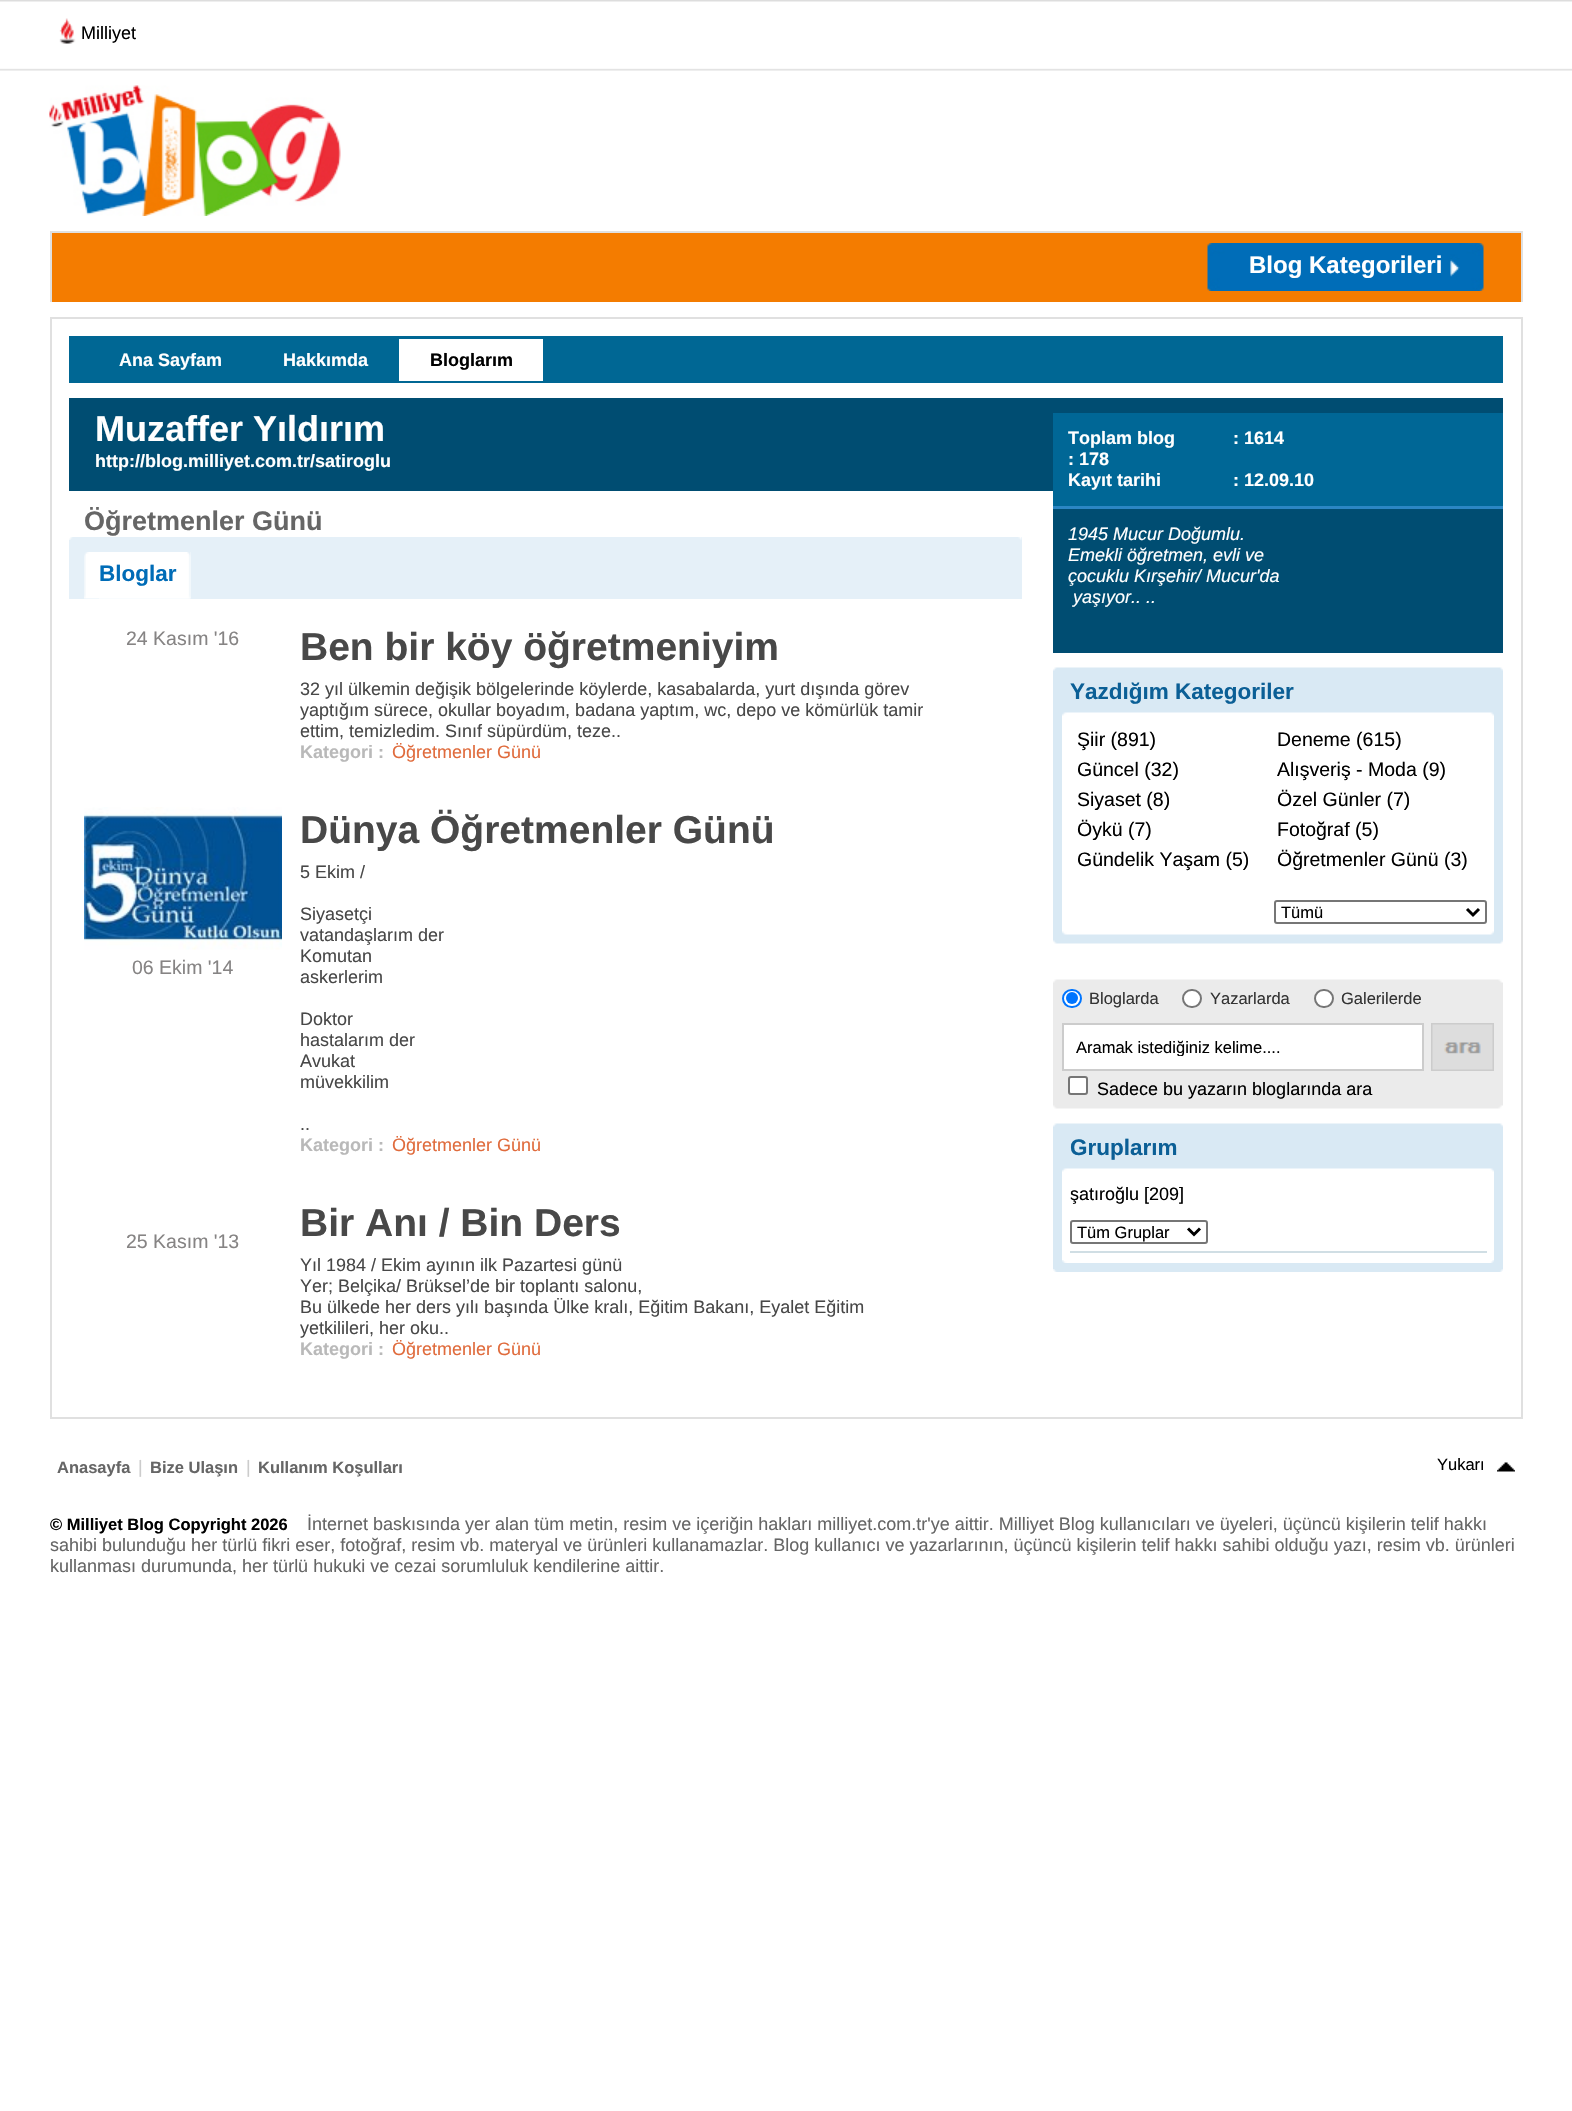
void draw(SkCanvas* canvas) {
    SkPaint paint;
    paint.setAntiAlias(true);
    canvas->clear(0xFFFFFFFF);
    canvas->drawImageRect(SkImages::DeferredFromEncodedData(SkData::MakeFromFileName("img1.png")), SkRect::MakeXYWH(0, 0, 1572, 71), SkSamplingOptions());
    canvas->drawImageRect(SkImages::DeferredFromEncodedData(SkData::MakeFromFileName("img2.png")), SkRect::MakeXYWH(59, 18, 17, 26), SkSamplingOptions());
    SkFont font1(fontMgr->matchFamilyStyle("Liberation Sans", SkFontStyle::Normal()), 18);
    font1.setSubpixel(true);
    paint.setColor(0xFF000000);
    canvas->drawString("Milliyet", 81, 39, font1, paint);
    canvas->drawImageRect(SkImages::DeferredFromEncodedData(SkData::MakeFromFileName("img3.png")), SkRect::MakeXYWH(49, 85, 292, 131), SkSamplingOptions());
    paint.setColor(0xFFF47C00);
    canvas->drawRect(SkRect::MakeXYWH(52, 233, 1469, 69), paint);
    paint.setColor(0xFFE0E0E0);
    canvas->drawRect(SkRect::MakeXYWH(50, 231, 1473, 2), paint);
    canvas->drawRect(SkRect::MakeXYWH(1521, 231, 2, 71), paint);
    canvas->drawRect(SkRect::MakeXYWH(50, 231, 2, 71), paint);
    canvas->drawImageRect(SkImages::DeferredFromEncodedData(SkData::MakeFromFileName("img4.png")), SkRect::MakeXYWH(1207, 243, 277, 48), SkSamplingOptions());
    SkFont font2(fontMgr->matchFamilyStyle("Liberation Sans", SkFontStyle::Bold()), 24);
    font2.setSubpixel(true);
    paint.setColor(0xFFFFFFFF);
    canvas->drawString("Blog Kategorileri", 1249, 273, font2, paint);
    paint.setStyle(SkPaint::kStroke_Style);
    paint.setStrokeWidth(2);
    paint.setColor(0xFFE0E0E0);
    canvas->drawRect(SkRect::MakeXYWH(51, 318, 1471, 1100), paint);
    paint.setStyle(SkPaint::kFill_Style);
    paint.setColor(0xFF006794);
    canvas->drawRect(SkRect::MakeXYWH(69, 336, 1434, 47), paint);
    SkFont font3(fontMgr->matchFamilyStyle("Liberation Sans", SkFontStyle::Bold()), 18);
    font3.setSubpixel(true);
    paint.setColor(0xFFFFFFFF);
    canvas->drawString("Ana Sayfam", 119, 366, font3, paint);
    canvas->drawString("Hakkımda", 283, 366, font3, paint);
    canvas->drawRect(SkRect::MakeXYWH(399, 339, 144, 42), paint);
    paint.setColor(0xFF000000);
    canvas->drawString("Bloglarım", 430, 366, font3, paint);
    paint.setColor(0xFF004D72);
    canvas->drawRect(SkRect::MakeXYWH(69, 398, 984, 93), paint);
    SkFont font4(fontMgr->matchFamilyStyle("Liberation Sans", SkFontStyle::Bold()), 36);
    font4.setSubpixel(true);
    paint.setColor(0xFFFFFFFF);
    canvas->drawString("Muzaffer Yıldırım", 95, 441, font4, paint);
    canvas->drawString("http://blog.milliyet.com.tr/satiroglu", 95, 467, font3, paint);
    SkFont font5(fontMgr->matchFamilyStyle("Liberation Sans", SkFontStyle::Bold()), 27);
    font5.setSubpixel(true);
    paint.setColor(0xFF666666);
    canvas->drawString("Öğretmenler Günü", 84, 530, font5, paint);
    paint.setColor(0xFFE5F0F8);
    canvas->drawRect(SkRect::MakeXYWH(69, 537, 953, 62), paint);
    canvas->drawImageRect(SkImages::DeferredFromEncodedData(SkData::MakeFromFileName("img5.png")), SkRect::MakeXYWH(69, 537, 953, 3), SkSamplingOptions());
    canvas->drawImageRect(SkImages::DeferredFromEncodedData(SkData::MakeFromFileName("img6.png")), SkRect::MakeXYWH(84, 552, 107, 47), SkSamplingOptions());
    canvas->drawImageRect(SkImages::DeferredFromEncodedData(SkData::MakeFromFileName("img7.png")), SkRect::MakeXYWH(99, 552, 92, 47), SkSamplingOptions());
    SkFont font6(fontMgr->matchFamilyStyle("Liberation Sans", SkFontStyle::Bold()), 22.5f);
    font6.setSubpixel(true);
    paint.setColor(0xFF006CB7);
    canvas->drawString("Bloglar", 99, 581, font6, paint);
    SkFont font7(fontMgr->matchFamilyStyle("Liberation Sans", SkFontStyle::Normal()), 19.5f);
    font7.setSubpixel(true);
    paint.setColor(0xFF868484);
    canvas->drawString("24 Kasım '16", 126, 645, font7, paint);
    SkFont font8(fontMgr->matchFamilyStyle("Liberation Sans", SkFontStyle::Bold()), 39);
    font8.setSubpixel(true);
    paint.setColor(0xFF484848);
    canvas->drawString("Ben bir köy öğretmeniyim", 300, 660, font8, paint);
    canvas->drawString("32 yıl ülkemin değişik bölgelerinde köylerde, kasabalarda, yurt dışında görev", 300, 695, font1, paint);
    canvas->drawString("yaptığım sürece, okullar boyadım, badana yaptım, wc, depo ve kömürlük tamir", 300, 716, font1, paint);
    canvas->drawString("ettim, temizledim. Sınıf süpürdüm, teze..", 300, 737, font1, paint);
    paint.setColor(0xFFB9B9B9);
    canvas->drawString("Kategori :", 300, 758, font3, paint);
    paint.setColor(0xFFE06B3C);
    canvas->drawString("Öğretmenler Günü", 392, 758, font1, paint);
    canvas->drawImageRect(SkImages::DeferredFromEncodedData(SkData::MakeFromFileName("img8.png")), SkRect::MakeXYWH(84, 807, 198, 143), SkSamplingOptions());
    paint.setColor(0xFF868484);
    canvas->drawString("06 Ekim '14", 132, 974, font7, paint);
    paint.setColor(0xFF484848);
    canvas->drawString("Dünya Öğretmenler Günü", 300, 843, font8, paint);
    canvas->drawString("5 Ekim /", 300, 878, font1, paint);
    canvas->drawString("Siyasetçi", 300, 920, font1, paint);
    canvas->drawString("vatandaşlarım der", 300, 941, font1, paint);
    canvas->drawString("Komutan", 300, 962, font1, paint);
    canvas->drawString("askerlerim", 300, 983, font1, paint);
    canvas->drawString("Doktor", 300, 1025, font1, paint);
    canvas->drawString("hastalarım der", 300, 1046, font1, paint);
    canvas->drawString("Avukat", 300, 1067, font1, paint);
    canvas->drawString("müvekkilim", 300, 1088, font1, paint);
    canvas->drawString("..", 300, 1130, font1, paint);
    paint.setColor(0xFFB9B9B9);
    canvas->drawString("Kategori :", 300, 1151, font3, paint);
    paint.setColor(0xFFE06B3C);
    canvas->drawString("Öğretmenler Günü", 392, 1151, font1, paint);
    paint.setColor(0xFF868484);
    canvas->drawString("25 Kasım '13", 126, 1248, font7, paint);
    paint.setColor(0xFF484848);
    canvas->drawString("Bir Anı / Bin Ders", 300, 1236, font8, paint);
    canvas->drawString("Yıl 1984 / Ekim ayının ilk Pazartesi günü", 300, 1271, font1, paint);
    canvas->drawString("Yer; Belçika/ Brüksel’de bir toplantı salonu,", 300, 1292, font1, paint);
    canvas->drawString("Bu ülkede her ders yılı başında Ülke kralı, Eğitim Bakanı, Eyalet Eğitim", 300, 1313, font1, paint);
    canvas->drawString("yetkilileri, her oku..", 300, 1334, font1, paint);
    paint.setColor(0xFFB9B9B9);
    canvas->drawString("Kategori :", 300, 1355, font3, paint);
    paint.setColor(0xFFE06B3C);
    canvas->drawString("Öğretmenler Günü", 392, 1355, font1, paint);
    paint.setColor(0xFF004D72);
    canvas->drawRect(SkRect::MakeXYWH(1053, 398, 450, 255), paint);
    paint.setColor(0xFF006796);
    canvas->drawRect(SkRect::MakeXYWH(1053, 413, 450, 93), paint);
    paint.setColor(0xFF2B86C4);
    canvas->drawRect(SkRect::MakeXYWH(1053, 506, 450, 3), paint);
    paint.setColor(0xFFFFFFFF);
    canvas->drawString("Toplam blog", 1068, 444, font3, paint);
    canvas->drawString(": 1614", 1233, 444, font3, paint);
    canvas->drawString(": 178", 1068, 465, font3, paint);
    canvas->drawString("Kayıt tarihi", 1068, 486, font3, paint);
    canvas->drawString(": 12.09.10", 1233, 486, font3, paint);
    SkFont font9(fontMgr->matchFamilyStyle("Liberation Sans", SkFontStyle::Italic()), 18);
    font9.setSubpixel(true);
    canvas->drawString("1945 Mucur Doğumlu.", 1068, 540, font9, paint);
    canvas->drawString("Emekli öğretmen, evli ve", 1068, 561, font9, paint);
    canvas->drawString("çocuklu Kırşehir/ Mucur'da", 1068, 582, font9, paint);
    canvas->drawString("yaşıyor.. ..", 1073, 603, font9, paint);
    paint.setColor(0xFFD9E9F4);
    canvas->drawRect(SkRect::MakeXYWH(1053, 670, 450, 271), paint);
    canvas->drawImageRect(SkImages::DeferredFromEncodedData(SkData::MakeFromFileName("img9.png")), SkRect::MakeXYWH(1053, 667, 450, 4), SkSamplingOptions());
    paint.setColor(0xFF0B5F96);
    canvas->drawString("Yazdığım Kategoriler", 1070, 699, font6, paint);
    paint.setColor(0xFFFFFFFF);
    canvas->drawRect(SkRect::MakeXYWH(1062, 715, 432, 217), paint);
    canvas->drawImageRect(SkImages::DeferredFromEncodedData(SkData::MakeFromFileName("img10.png")), SkRect::MakeXYWH(1062, 712, 432, 4), SkSamplingOptions());
    paint.setColor(0xFF000000);
    canvas->drawString("Şiir (891)", 1077, 746, font7, paint);
    canvas->drawString("Deneme (615)", 1277, 746, font7, paint);
    canvas->drawString("Güncel (32)", 1077, 776, font7, paint);
    canvas->drawString("Alışveriş - Moda (9)", 1277, 776, font7, paint);
    canvas->drawString("Siyaset (8)", 1077, 806, font7, paint);
    canvas->drawString("Özel Günler (7)", 1277, 806, font7, paint);
    canvas->drawString("Öykü (7)", 1077, 836, font7, paint);
    canvas->drawString("Fotoğraf (5)", 1277, 836, font7, paint);
    canvas->drawString("Gündelik Yaşam (5)", 1077, 866, font7, paint);
    canvas->drawString("Öğretmenler Günü (3)", 1277, 866, font7, paint);
    paint.setStyle(SkPaint::kStroke_Style);
    paint.setColor(0xFF767676);
    canvas->drawRoundRect(SkRect::MakeXYWH(1275, 901, 211, 22), 2, 2, paint);
    paint.setStrokeWidth(3);
    paint.setColor(0xFF000000);
    canvas->drawPath(SkPathBuilder().moveTo(1467, 909).lineTo(1473, 915).lineTo(1479, 909).detach(), paint);
    SkFont font10(fontMgr->matchFamilyStyle("Liberation Sans", SkFontStyle::Normal()), 16.5f);
    font10.setSubpixel(true);
    paint.setStyle(SkPaint::kFill_Style);
    canvas->drawString("Tümü", 1281, 918, font10, paint);
    canvas->drawImageRect(SkImages::DeferredFromEncodedData(SkData::MakeFromFileName("img11.png")), SkRect::MakeXYWH(1062, 931, 432, 4), SkSamplingOptions());
    canvas->drawImageRect(SkImages::DeferredFromEncodedData(SkData::MakeFromFileName("img12.png")), SkRect::MakeXYWH(1053, 940, 450, 4), SkSamplingOptions());
    paint.setColor(0xFFEBEBEB);
    canvas->drawRect(SkRect::MakeXYWH(1053, 982, 450, 124), paint);
    canvas->drawImageRect(SkImages::DeferredFromEncodedData(SkData::MakeFromFileName("img13.png")), SkRect::MakeXYWH(1053, 979, 450, 4), SkSamplingOptions());
    paint.setColor(0xFFFFFFFF);
    canvas->drawRoundRect(SkRect::MakeXYWH(1063, 990, 18, 17), 8.5f, 8.5f, paint);
    paint.setStyle(SkPaint::kStroke_Style);
    paint.setStrokeWidth(2);
    paint.setColor(0xFF0075FF);
    canvas->drawRoundRect(SkRect::MakeXYWH(1063, 990, 18, 17), 8.5f, 8.5f, paint);
    paint.setStyle(SkPaint::kFill_Style);
    canvas->drawCircle(1072, 998, 6, paint);
    paint.setColor(0xFF333333);
    canvas->drawString("Bloglarda", 1089, 1004, font10, paint);
    paint.setColor(0xFFFFFFFF);
    canvas->drawRoundRect(SkRect::MakeXYWH(1183, 990, 18, 17), 8.5f, 8.5f, paint);
    paint.setStyle(SkPaint::kStroke_Style);
    paint.setColor(0xFF767676);
    canvas->drawRoundRect(SkRect::MakeXYWH(1183, 990, 18, 17), 8.5f, 8.5f, paint);
    paint.setStyle(SkPaint::kFill_Style);
    paint.setColor(0xFF333333);
    canvas->drawString("Yazarlarda", 1210, 1004, font10, paint);
    paint.setColor(0xFFFFFFFF);
    canvas->drawRoundRect(SkRect::MakeXYWH(1315, 990, 18, 17), 8.5f, 8.5f, paint);
    paint.setStyle(SkPaint::kStroke_Style);
    paint.setColor(0xFF767676);
    canvas->drawRoundRect(SkRect::MakeXYWH(1315, 990, 18, 17), 8.5f, 8.5f, paint);
    paint.setStyle(SkPaint::kFill_Style);
    paint.setColor(0xFF333333);
    canvas->drawString("Galerilerde", 1341, 1004, font10, paint);
    paint.setColor(0xFFFFFFFF);
    canvas->drawRect(SkRect::MakeXYWH(1063, 1024, 360, 46), paint);
    paint.setStyle(SkPaint::kStroke_Style);
    paint.setColor(0xFFCCCCCC);
    canvas->drawRect(SkRect::MakeXYWH(1063, 1024, 360, 46), paint);
    canvas->save();
    canvas->clipRect(SkRect::MakeXYWH(1076, 1038, 334, 18));
    paint.setStyle(SkPaint::kFill_Style);
    paint.setColor(0xFF000000);
    canvas->drawString("Aramak istediğiniz kelime....", 1076, 1053, font10, paint);
    canvas->restore();
    canvas->drawImageRect(SkImages::DeferredFromEncodedData(SkData::MakeFromFileName("img14.png")), SkRect::MakeXYWH(1431, 1023, 63, 48), SkSamplingOptions());
    paint.setColor(0xFFFFFFFF);
    canvas->drawRoundRect(SkRect::MakeXYWH(1069, 1077, 18, 17), 2, 2, paint);
    paint.setStyle(SkPaint::kStroke_Style);
    paint.setColor(0xFF767676);
    canvas->drawRoundRect(SkRect::MakeXYWH(1069, 1077, 18, 17), 2, 2, paint);
    paint.setStyle(SkPaint::kFill_Style);
    paint.setColor(0xFF000000);
    canvas->drawString("Sadece bu yazarın bloglarında ara", 1097, 1095, font1, paint);
    canvas->drawImageRect(SkImages::DeferredFromEncodedData(SkData::MakeFromFileName("img15.png")), SkRect::MakeXYWH(1053, 1105, 450, 4), SkSamplingOptions());
    paint.setColor(0xFFD9E9F4);
    canvas->drawRect(SkRect::MakeXYWH(1053, 1126, 450, 143), paint);
    canvas->drawImageRect(SkImages::DeferredFromEncodedData(SkData::MakeFromFileName("img9.png")), SkRect::MakeXYWH(1053, 1123, 450, 4), SkSamplingOptions());
    paint.setColor(0xFF0B5F96);
    canvas->drawString("Gruplarım", 1070, 1155, font6, paint);
    paint.setColor(0xFFFFFFFF);
    canvas->drawRect(SkRect::MakeXYWH(1062, 1171, 432, 89), paint);
    canvas->drawImageRect(SkImages::DeferredFromEncodedData(SkData::MakeFromFileName("img10.png")), SkRect::MakeXYWH(1062, 1168, 432, 4), SkSamplingOptions());
    paint.setColor(0xFF000000);
    canvas->drawString("şatıroğlu [209]", 1070, 1200, font1, paint);
    paint.setColor(0xFFD0DEE4);
    canvas->drawRect(SkRect::MakeXYWH(1070, 1251, 417, 2), paint);
    paint.setStyle(SkPaint::kStroke_Style);
    paint.setColor(0xFF767676);
    canvas->drawRoundRect(SkRect::MakeXYWH(1071, 1221, 136, 22), 2, 2, paint);
    paint.setStrokeWidth(3);
    paint.setColor(0xFF000000);
    canvas->drawPath(SkPathBuilder().moveTo(1188, 1228.5f).lineTo(1194, 1234.5f).lineTo(1200, 1228.5f).detach(), paint);
    paint.setStyle(SkPaint::kFill_Style);
    canvas->drawString("Tüm Gruplar", 1077, 1238, font10, paint);
    canvas->drawImageRect(SkImages::DeferredFromEncodedData(SkData::MakeFromFileName("img16.png")), SkRect::MakeXYWH(1062, 1260, 432, 3), SkSamplingOptions());
    canvas->drawImageRect(SkImages::DeferredFromEncodedData(SkData::MakeFromFileName("img17.png")), SkRect::MakeXYWH(1053, 1269, 450, 3), SkSamplingOptions());
    SkFont font11(fontMgr->matchFamilyStyle("Liberation Sans", SkFontStyle::Bold()), 16.5f);
    font11.setSubpixel(true);
    paint.setColor(0xFF666666);
    canvas->drawString("Anasayfa", 57, 1473, font11, paint);
    paint.setColor(0xFFCCCCCC);
    canvas->drawString("|", 138, 1473, font1, paint);
    paint.setColor(0xFF666666);
    canvas->drawString("Bize Ulaşın", 150, 1473, font11, paint);
    paint.setColor(0xFFCCCCCC);
    canvas->drawString("|", 246, 1473, font1, paint);
    paint.setColor(0xFF666666);
    canvas->drawString("Kullanım Koşulları", 258, 1473, font11, paint);
    canvas->drawImageRect(SkImages::DeferredFromEncodedData(SkData::MakeFromFileName("img18.png")), SkRect::MakeXYWH(1497, 1462, 18, 10), SkSamplingOptions());
    paint.setColor(0xFF000000);
    canvas->drawString("Yukarı", 1437, 1470, font10, paint);
    canvas->drawString("© Milliyet Blog Copyright 2026", 50, 1530, font11, paint);
    paint.setColor(0xFF666666);
    canvas->drawString("İnternet baskısında yer alan tüm metin, resim ve içeriğin hakları milliyet.com.tr'ye aittir. Milliyet Blog kullanıcıları ve üyeleri, üçüncü kişilerin telif hakkı", 307, 1530, font1, paint);
    canvas->drawString("sahibi bulunduğu her türlü fikri eser, fotoğraf, resim vb. materyal ve ürünleri kullanamazlar. Blog kullanıcı ve yazarlarının, üçüncü kişilerin telif hakkı sahibi olduğu yazı, resim vb. ürünleri", 50, 1551, font1, paint);
    canvas->drawString("kullanması durumunda, her türlü hukuki ve cezai sorumluluk kendilerine aittir.", 50, 1572, font1, paint);
}
